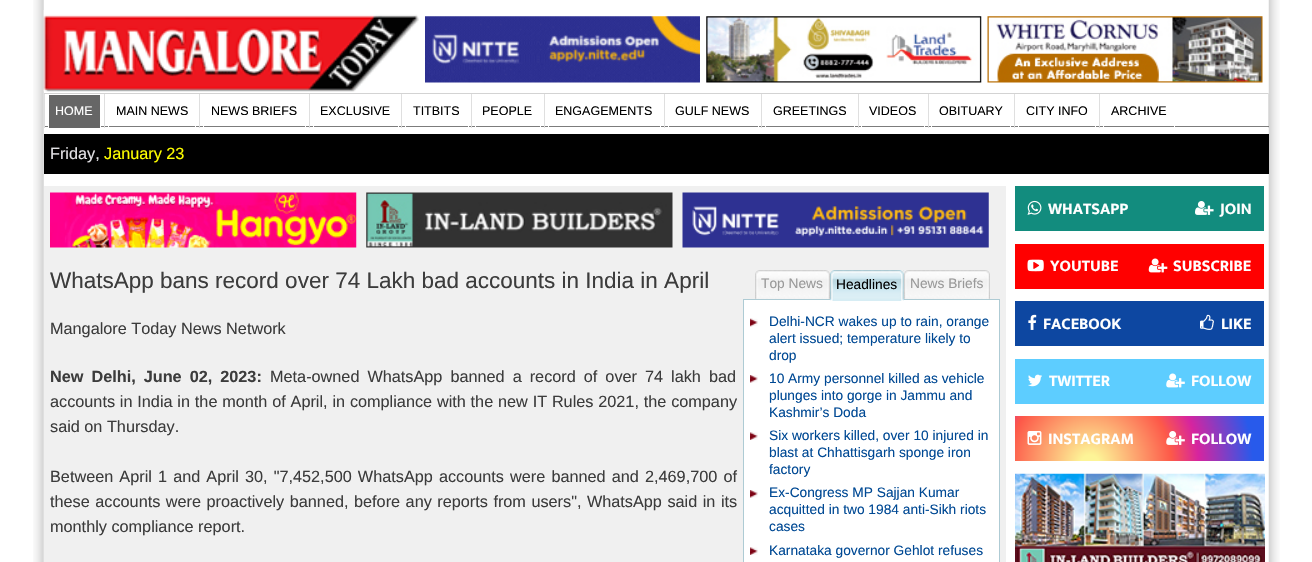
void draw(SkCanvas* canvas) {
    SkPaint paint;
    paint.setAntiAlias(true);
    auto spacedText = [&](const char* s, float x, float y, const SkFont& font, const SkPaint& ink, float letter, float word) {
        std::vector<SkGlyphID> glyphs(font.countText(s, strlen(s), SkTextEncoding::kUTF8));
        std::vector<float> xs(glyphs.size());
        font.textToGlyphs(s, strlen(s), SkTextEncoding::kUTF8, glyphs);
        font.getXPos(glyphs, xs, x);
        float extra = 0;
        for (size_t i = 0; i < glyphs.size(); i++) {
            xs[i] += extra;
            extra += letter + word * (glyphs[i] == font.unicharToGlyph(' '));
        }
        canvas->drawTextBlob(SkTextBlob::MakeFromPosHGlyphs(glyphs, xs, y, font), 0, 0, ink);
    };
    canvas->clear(0xFFFFFFFF);
    canvas->drawImageRect(SkImages::DeferredFromEncodedData(SkData::MakeFromFileName("img1.png")), SkRect::MakeXYWH(33, 0, 1247, 562), SkSamplingOptions());
    canvas->drawImageRect(SkImages::DeferredFromEncodedData(SkData::MakeFromFileName("img2.png")), SkRect::MakeXYWH(43, 10, 376, 82), SkSamplingOptions());
    canvas->drawImageRect(SkImages::DeferredFromEncodedData(SkData::MakeFromFileName("img3.png")), SkRect::MakeXYWH(425, 16, 275, 67), SkSamplingOptions());
    canvas->drawImageRect(SkImages::DeferredFromEncodedData(SkData::MakeFromFileName("img4.png")), SkRect::MakeXYWH(706, 16, 276, 67), SkSamplingOptions());
    canvas->drawImageRect(SkImages::DeferredFromEncodedData(SkData::MakeFromFileName("img5.png")), SkRect::MakeXYWH(987, 16, 276, 67), SkSamplingOptions());
    paint.setColor(0xFFD3D3D3);
    canvas->drawRect(SkRect::MakeXYWH(44, 93, 1225, 1), paint);
    paint.setColor(0xFFDFDFDF);
    canvas->drawRect(SkRect::MakeXYWH(1268, 93, 1, 35), paint);
    paint.setColor(0xFF7C7C7C);
    canvas->drawRect(SkRect::MakeXYWH(44, 126, 1225, 1), paint);
    paint.setColor(0xFFDFDFDF);
    canvas->drawRect(SkRect::MakeXYWH(44, 94, 1, 34), paint);
    paint.setColor(0xFF666666);
    canvas->drawRect(SkRect::MakeXYWH(49, 95, 51, 33), paint);
    paint.setColor(0xFFFFFFFF);
    canvas->drawRect(SkRect::MakeXYWH(100, 126, 1, 2), paint);
    canvas->drawRect(SkRect::MakeXYWH(48, 126, 1, 2), paint);
    SkFont font1(fontMgr->matchFamilyStyle("Liberation Sans", SkFontStyle::Normal()), 12.5f);
    font1.setSubpixel(true);
    canvas->drawString("HOME", 55, 115, font1, paint);
    paint.setColor(0xFFDFDFDF);
    canvas->drawRect(SkRect::MakeXYWH(104, 94, 1, 34), paint);
    paint.setColor(0xFFFFFFFF);
    canvas->drawRect(SkRect::MakeXYWH(195, 126, 1, 2), paint);
    canvas->drawRect(SkRect::MakeXYWH(108, 126, 1, 2), paint);
    paint.setColor(0xFF000000);
    canvas->drawString("MAIN NEWS", 116, 115, font1, paint);
    paint.setColor(0xFFDFDFDF);
    canvas->drawRect(SkRect::MakeXYWH(199, 94, 1, 34), paint);
    paint.setColor(0xFFFFFFFF);
    canvas->drawRect(SkRect::MakeXYWH(305, 126, 1, 2), paint);
    canvas->drawRect(SkRect::MakeXYWH(203, 126, 1, 2), paint);
    paint.setColor(0xFF000000);
    canvas->drawString("NEWS BRIEFS", 211, 115, font1, paint);
    paint.setColor(0xFFDFDFDF);
    canvas->drawRect(SkRect::MakeXYWH(309, 94, 1, 34), paint);
    paint.setColor(0xFFFFFFFF);
    canvas->drawRect(SkRect::MakeXYWH(398, 126, 1, 2), paint);
    canvas->drawRect(SkRect::MakeXYWH(313, 126, 1, 2), paint);
    paint.setColor(0xFF000000);
    canvas->drawString("EXCLUSIVE", 320, 115, font1, paint);
    paint.setColor(0xFFDFDFDF);
    canvas->drawRect(SkRect::MakeXYWH(401, 94, 1, 34), paint);
    paint.setColor(0xFFFFFFFF);
    canvas->drawRect(SkRect::MakeXYWH(468, 126, 1, 2), paint);
    canvas->drawRect(SkRect::MakeXYWH(405, 126, 1, 2), paint);
    paint.setColor(0xFF000000);
    canvas->drawString("TITBITS", 413, 115, font1, paint);
    paint.setColor(0xFFDFDFDF);
    canvas->drawRect(SkRect::MakeXYWH(471, 94, 1, 34), paint);
    paint.setColor(0xFFFFFFFF);
    canvas->drawRect(SkRect::MakeXYWH(540, 126, 1, 2), paint);
    canvas->drawRect(SkRect::MakeXYWH(475, 126, 1, 2), paint);
    paint.setColor(0xFF000000);
    canvas->drawString("PEOPLE", 482, 115, font1, paint);
    paint.setColor(0xFFDFDFDF);
    canvas->drawRect(SkRect::MakeXYWH(544, 94, 1, 34), paint);
    paint.setColor(0xFFFFFFFF);
    canvas->drawRect(SkRect::MakeXYWH(660, 126, 1, 2), paint);
    canvas->drawRect(SkRect::MakeXYWH(548, 126, 1, 2), paint);
    paint.setColor(0xFF000000);
    canvas->drawString("ENGAGEMENTS", 555, 115, font1, paint);
    paint.setColor(0xFFDFDFDF);
    canvas->drawRect(SkRect::MakeXYWH(664, 94, 1, 34), paint);
    paint.setColor(0xFFFFFFFF);
    canvas->drawRect(SkRect::MakeXYWH(758, 126, 1, 2), paint);
    canvas->drawRect(SkRect::MakeXYWH(668, 126, 1, 2), paint);
    paint.setColor(0xFF000000);
    canvas->drawString("GULF NEWS", 675, 115, font1, paint);
    paint.setColor(0xFFDFDFDF);
    canvas->drawRect(SkRect::MakeXYWH(761, 94, 1, 34), paint);
    paint.setColor(0xFFFFFFFF);
    canvas->drawRect(SkRect::MakeXYWH(854, 126, 1, 2), paint);
    canvas->drawRect(SkRect::MakeXYWH(765, 126, 1, 2), paint);
    paint.setColor(0xFF000000);
    canvas->drawString("GREETINGS", 773, 115, font1, paint);
    paint.setColor(0xFFDFDFDF);
    canvas->drawRect(SkRect::MakeXYWH(858, 94, 1, 34), paint);
    paint.setColor(0xFFFFFFFF);
    canvas->drawRect(SkRect::MakeXYWH(924, 126, 1, 2), paint);
    canvas->drawRect(SkRect::MakeXYWH(861, 126, 1, 2), paint);
    paint.setColor(0xFF000000);
    canvas->drawString("VIDEOS", 869, 115, font1, paint);
    paint.setColor(0xFFDFDFDF);
    canvas->drawRect(SkRect::MakeXYWH(928, 94, 1, 34), paint);
    paint.setColor(0xFFFFFFFF);
    canvas->drawRect(SkRect::MakeXYWH(1010, 126, 1, 2), paint);
    canvas->drawRect(SkRect::MakeXYWH(931, 126, 1, 2), paint);
    paint.setColor(0xFF000000);
    canvas->drawString("OBITUARY", 939, 115, font1, paint);
    paint.setColor(0xFFDFDFDF);
    canvas->drawRect(SkRect::MakeXYWH(1014, 94, 1, 34), paint);
    paint.setColor(0xFFFFFFFF);
    canvas->drawRect(SkRect::MakeXYWH(1095, 126, 1, 2), paint);
    canvas->drawRect(SkRect::MakeXYWH(1018, 126, 1, 2), paint);
    paint.setColor(0xFF000000);
    canvas->drawString("CITY INFO", 1026, 115, font1, paint);
    paint.setColor(0xFFDFDFDF);
    canvas->drawRect(SkRect::MakeXYWH(1099, 94, 1, 34), paint);
    paint.setColor(0xFFFFFFFF);
    canvas->drawRect(SkRect::MakeXYWH(1174, 126, 1, 2), paint);
    canvas->drawRect(SkRect::MakeXYWH(1103, 126, 1, 2), paint);
    paint.setColor(0xFF000000);
    canvas->drawString("ARCHIVE", 1111, 115, font1, paint);
    canvas->drawRect(SkRect::MakeXYWH(44, 134, 1225, 40), paint);
    SkFont font2(fontMgr->matchFamilyStyle("Liberation Sans", SkFontStyle::Normal()), 16.25f);
    font2.setSubpixel(true);
    paint.setColor(0xFFE3E1E5);
    canvas->drawString("Friday,", 50, 159, font2, paint);
    paint.setColor(0xFFFFFF00);
    canvas->drawString("January 23", 104, 159, font2, paint);
    paint.setColor(0xFFF0F0F0);
    canvas->drawRect(SkRect::MakeXYWH(44, 186, 962, 376), paint);
    canvas->drawImageRect(SkImages::DeferredFromEncodedData(SkData::MakeFromFileName("img6.png")), SkRect::MakeXYWH(50, 192, 307, 56), SkSamplingOptions());
    canvas->drawImageRect(SkImages::DeferredFromEncodedData(SkData::MakeFromFileName("img7.png")), SkRect::MakeXYWH(366, 192, 307, 56), SkSamplingOptions());
    canvas->drawImageRect(SkImages::DeferredFromEncodedData(SkData::MakeFromFileName("img8.png")), SkRect::MakeXYWH(682, 192, 307, 56), SkSamplingOptions());
    SkFont font3(fontMgr->matchFamilyStyle("Liberation Sans", SkFontStyle::Normal()), 22.5f);
    font3.setSubpixel(true);
    paint.setColor(0xFF3C3C3C);
    canvas->drawString("WhatsApp bans record over 74 Lakh bad accounts in India in April", 50, 288, font3, paint);
    canvas->drawString("Mangalore Today News Network", 50, 334, font2, paint);
    SkFont font4(fontMgr->matchFamilyStyle("Liberation Sans", SkFontStyle::Bold()), 16.25f);
    font4.setSubpixel(true);
    spacedText("New Delhi, June 02, 2023:", 50, 382, font4, paint, 0, 3.5f);
    spacedText("Meta-owned WhatsApp banned a record of over 74 lakh bad", 270, 382, font2, paint, 0, 3.5f);
    spacedText("accounts in India in the month of April, in compliance with the new IT Rules 2021, the company", 50, 407, font2, paint, 0, 0.3f);
    canvas->drawString("said on Thursday.", 50, 432, font2, paint);
    spacedText("Between April 1 and April 30, \"7,452,500 WhatsApp accounts were banned and 2,469,700 of", 50, 482, font2, paint, 0, 1.6f);
    spacedText("these accounts were proactively banned, before any reports from users\", WhatsApp said in its", 50, 507, font2, paint, 0, 1);
    canvas->drawString("monthly compliance report.", 50, 532, font2, paint);
    canvas->drawImageRect(SkImages::DeferredFromEncodedData(SkData::MakeFromFileName("img9.png")), SkRect::MakeXYWH(755, 270, 75, 29), SkSamplingOptions());
    canvas->drawImageRect(SkImages::DeferredFromEncodedData(SkData::MakeFromFileName("img10.png")), SkRect::MakeXYWH(826, 270, 4, 29), SkSamplingOptions());
    SkFont font5(fontMgr->matchFamilyStyle("Liberation Sans", SkFontStyle::Normal()), 13.75f);
    font5.setSubpixel(true);
    paint.setColor(0xFF999999);
    canvas->drawString("Top News", 761, 288, font5, paint);
    canvas->drawImageRect(SkImages::DeferredFromEncodedData(SkData::MakeFromFileName("img13.png")), SkRect::MakeXYWH(903, 270, 87, 29), SkSamplingOptions());
    paint.setColor(0xFFFFFFFF);
    canvas->drawRect(SkRect::MakeXYWH(743.5f, 299.5f, 256, 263), paint);
    paint.setStyle(SkPaint::kStroke_Style);
    paint.setStrokeWidth(1);
    paint.setColor(0xFFAECBD4);
    canvas->drawRect(SkRect::MakeXYWH(743.5f, 299.5f, 256, 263), paint);
    canvas->drawImageRect(SkImages::DeferredFromEncodedData(SkData::MakeFromFileName("img11.png")), SkRect::MakeXYWH(830, 270, 74, 31), SkSamplingOptions());
    canvas->drawImageRect(SkImages::DeferredFromEncodedData(SkData::MakeFromFileName("img12.png")), SkRect::MakeXYWH(899, 270, 5, 31), SkSamplingOptions());
    paint.setStyle(SkPaint::kFill_Style);
    paint.setColor(0xFF000000);
    canvas->drawString("Headlines", 836, 289, font5, paint);
    canvas->drawImageRect(SkImages::DeferredFromEncodedData(SkData::MakeFromFileName("img14.png")), SkRect::MakeXYWH(985, 270, 5, 29), SkSamplingOptions());
    paint.setColor(0xFF999999);
    canvas->drawString("News Briefs", 910, 288, font5, paint);
    canvas->drawImageRect(SkImages::DeferredFromEncodedData(SkData::MakeFromFileName("img15.png")), SkRect::MakeXYWH(750, 318, 8, 9), SkSamplingOptions());
    paint.setColor(0xFF004994);
    canvas->drawString("Delhi-NCR wakes up to rain, orange", 769, 326, font5, paint);
    canvas->drawString("alert issued; temperature likely to", 769, 343, font5, paint);
    canvas->drawString("drop", 769, 360, font5, paint);
    canvas->drawImageRect(SkImages::DeferredFromEncodedData(SkData::MakeFromFileName("img16.png")), SkRect::MakeXYWH(750, 375, 8, 8), SkSamplingOptions());
    canvas->drawString("10 Army personnel killed as vehicle", 769, 383, font5, paint);
    canvas->drawString("plunges into gorge in Jammu and", 769, 400, font5, paint);
    canvas->drawString("Kashmir’s Doda", 769, 417, font5, paint);
    canvas->drawImageRect(SkImages::DeferredFromEncodedData(SkData::MakeFromFileName("img17.png")), SkRect::MakeXYWH(750, 432, 8, 8), SkSamplingOptions());
    canvas->drawString("Six workers killed, over 10 injured in", 769, 440, font5, paint);
    canvas->drawString("blast at Chhattisgarh sponge iron", 769, 457, font5, paint);
    canvas->drawString("factory", 769, 474, font5, paint);
    canvas->drawImageRect(SkImages::DeferredFromEncodedData(SkData::MakeFromFileName("img16.png")), SkRect::MakeXYWH(750, 490, 8, 8), SkSamplingOptions());
    canvas->drawString("Ex-Congress MP Sajjan Kumar", 769, 497, font5, paint);
    canvas->drawString("acquitted in two 1984 anti-Sikh riots", 769, 514, font5, paint);
    canvas->drawString("cases", 769, 531, font5, paint);
    canvas->drawImageRect(SkImages::DeferredFromEncodedData(SkData::MakeFromFileName("img17.png")), SkRect::MakeXYWH(750, 547, 8, 8), SkSamplingOptions());
    canvas->drawString("Karnataka governor Gehlot refuses", 769, 555, font5, paint);
    paint.setColor(0xFF128C7E);
    canvas->drawRect(SkRect::MakeXYWH(1015, 186, 249, 45), paint);
    canvas->drawImageRect(SkImages::DeferredFromEncodedData(SkData::MakeFromFileName("img18.png")), SkRect::MakeXYWH(1027, 200, 15, 15), SkSamplingOptions());
    SkFont font6(fontMgr->matchFamilyStyle("Mukta Vaani", SkFontStyle::Bold()), 16.25f);
    font6.setSubpixel(true);
    paint.setColor(0xFFFFFFFF);
    canvas->drawString("WHATSAPP", 1048, 214, font6, paint);
    canvas->drawImageRect(SkImages::DeferredFromEncodedData(SkData::MakeFromFileName("img19.png")), SkRect::MakeXYWH(1195, 201, 19, 14), SkSamplingOptions());
    canvas->drawString("JOIN", 1220, 214, font6, paint);
    paint.setColor(0xFFFF0000);
    canvas->drawRect(SkRect::MakeXYWH(1015, 244, 249, 45), paint);
    canvas->drawImageRect(SkImages::DeferredFromEncodedData(SkData::MakeFromFileName("img20.png")), SkRect::MakeXYWH(1027, 259, 17, 13), SkSamplingOptions());
    paint.setColor(0xFFFFFFFF);
    canvas->drawString("YOUTUBE", 1050, 271, font6, paint);
    canvas->drawImageRect(SkImages::DeferredFromEncodedData(SkData::MakeFromFileName("img21.png")), SkRect::MakeXYWH(1148, 258, 20, 15), SkSamplingOptions());
    canvas->drawString("SUBSCRIBE", 1173, 271, font6, paint);
    paint.setColor(0xFF0D47A1);
    canvas->drawRect(SkRect::MakeXYWH(1015, 301, 249, 45), paint);
    canvas->drawImageRect(SkImages::DeferredFromEncodedData(SkData::MakeFromFileName("img22.png")), SkRect::MakeXYWH(1028, 314, 9, 16), SkSamplingOptions());
    paint.setColor(0xFFFFFFFF);
    canvas->drawString("FACEBOOK", 1043, 329, font6, paint);
    canvas->drawImageRect(SkImages::DeferredFromEncodedData(SkData::MakeFromFileName("img23.png")), SkRect::MakeXYWH(1200, 314, 14, 16), SkSamplingOptions());
    canvas->drawString("LIKE", 1221, 329, font6, paint);
    paint.setColor(0xFF5DCDFF);
    canvas->drawRect(SkRect::MakeXYWH(1015, 359, 249, 45), paint);
    canvas->drawImageRect(SkImages::DeferredFromEncodedData(SkData::MakeFromFileName("img24.png")), SkRect::MakeXYWH(1028, 374, 14, 13), SkSamplingOptions());
    paint.setColor(0xFFFFFFFF);
    canvas->drawString("TWITTER", 1049, 386, font6, paint);
    canvas->drawImageRect(SkImages::DeferredFromEncodedData(SkData::MakeFromFileName("img25.png")), SkRect::MakeXYWH(1166, 373, 19, 15), SkSamplingOptions());
    canvas->drawString("FOLLOW", 1191, 386, font6, paint);
    {
        const SkColor colors[] = {0xFFFDF497, 0xFFFDF497, 0xFFFD5949, 0xFFD6249F, 0xFF285AEB};
        const float stops[] = {0, 0.05f, 0.45f, 0.6f, 0.9f};
        paint.setShader(SkGradientShader::MakeRadial({1090, 464}, 181, colors, stops, 5, SkTileMode::kClamp));
        paint.setAlpha(255);
    }
    canvas->drawRect(SkRect::MakeXYWH(1015, 416, 249, 45), paint);
    canvas->drawImageRect(SkImages::DeferredFromEncodedData(SkData::MakeFromFileName("img26.png")), SkRect::MakeXYWH(1027, 431, 15, 14), SkSamplingOptions());
    paint.setShader(nullptr);
    paint.setColor(0xFFFFFFFF);
    canvas->drawString("INSTAGRAM", 1048, 444, font6, paint);
    canvas->drawImageRect(SkImages::DeferredFromEncodedData(SkData::MakeFromFileName("img27.png")), SkRect::MakeXYWH(1166, 431, 19, 14), SkSamplingOptions());
    canvas->drawString("FOLLOW", 1191, 444, font6, paint);
    canvas->drawImageRect(SkImages::DeferredFromEncodedData(SkData::MakeFromFileName("img28.png")), SkRect::MakeXYWH(1015, 473, 250, 89), SkSamplingOptions());
}
